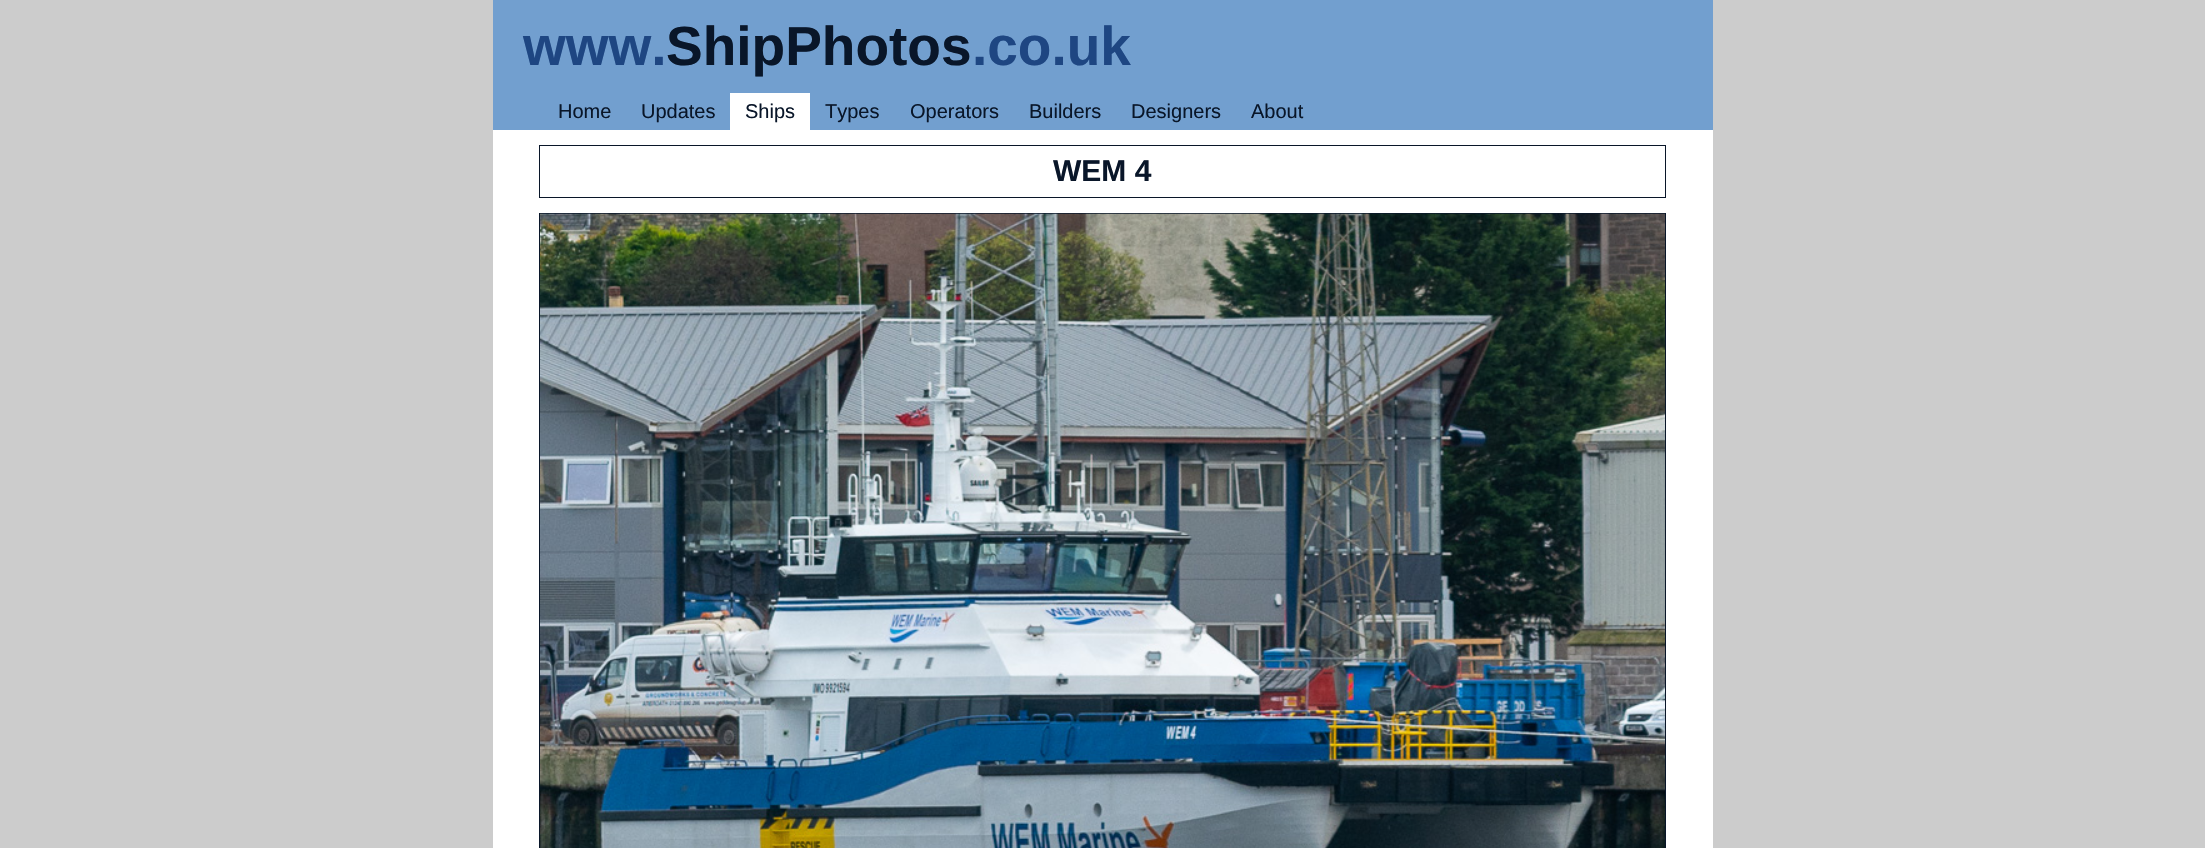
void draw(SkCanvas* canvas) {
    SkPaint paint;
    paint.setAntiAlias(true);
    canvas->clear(0xFFCCCCCC);
    paint.setColor(0xFF729FCF);
    canvas->drawRect(SkRect::MakeXYWH(493, 0, 1220, 130), paint);
    SkFont font1(fontMgr->matchFamilyStyle("Liberation Sans", SkFontStyle::Bold()), 55);
    font1.setSubpixel(true);
    paint.setColor(0xFF1E4682);
    canvas->drawString("www.", 523, 65, font1, paint);
    paint.setColor(0xFF091629);
    canvas->drawString("ShipPhotos", 666, 65, font1, paint);
    paint.setColor(0xFF1E4682);
    canvas->drawString(".co.uk", 972, 65, font1, paint);
    SkFont font2(fontMgr->matchFamilyStyle("Liberation Sans", SkFontStyle::Normal()), 20);
    font2.setSubpixel(true);
    paint.setColor(0xFF091629);
    canvas->drawString("Home", 558, 118, font2, paint);
    canvas->drawString("Updates", 641, 118, font2, paint);
    paint.setColor(0xFFFFFFFF);
    canvas->drawRect(SkRect::MakeXYWH(730, 93, 80, 37), paint);
    paint.setColor(0xFF091629);
    canvas->drawString("Ships", 745, 118, font2, paint);
    canvas->drawString("Types", 825, 118, font2, paint);
    canvas->drawString("Operators", 910, 118, font2, paint);
    canvas->drawString("Builders", 1029, 118, font2, paint);
    canvas->drawString("Designers", 1131, 118, font2, paint);
    canvas->drawString("About", 1251, 118, font2, paint);
    paint.setColor(0xFFFFFFFF);
    canvas->drawRect(SkRect::MakeXYWH(493, 130, 1220, 718), paint);
    paint.setStyle(SkPaint::kStroke_Style);
    paint.setStrokeWidth(1);
    paint.setColor(0xFF091629);
    canvas->drawRect(SkRect::MakeXYWH(539.5f, 145.5f, 1126, 52), paint);
    SkFont font3(fontMgr->matchFamilyStyle("Liberation Sans", SkFontStyle::Bold()), 30);
    font3.setSubpixel(true);
    paint.setStyle(SkPaint::kFill_Style);
    canvas->drawString("WEM 4", 1053, 181, font3, paint);
    paint.setStyle(SkPaint::kStroke_Style);
    canvas->drawRect(SkRect::MakeXYWH(539.5f, 213.5f, 1126, 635), paint);
    canvas->drawImageRect(SkImages::DeferredFromEncodedData(SkData::MakeFromFileName("img1.png")), SkRect::MakeXYWH(540, 213, 1125, 635), SkSamplingOptions());
}
